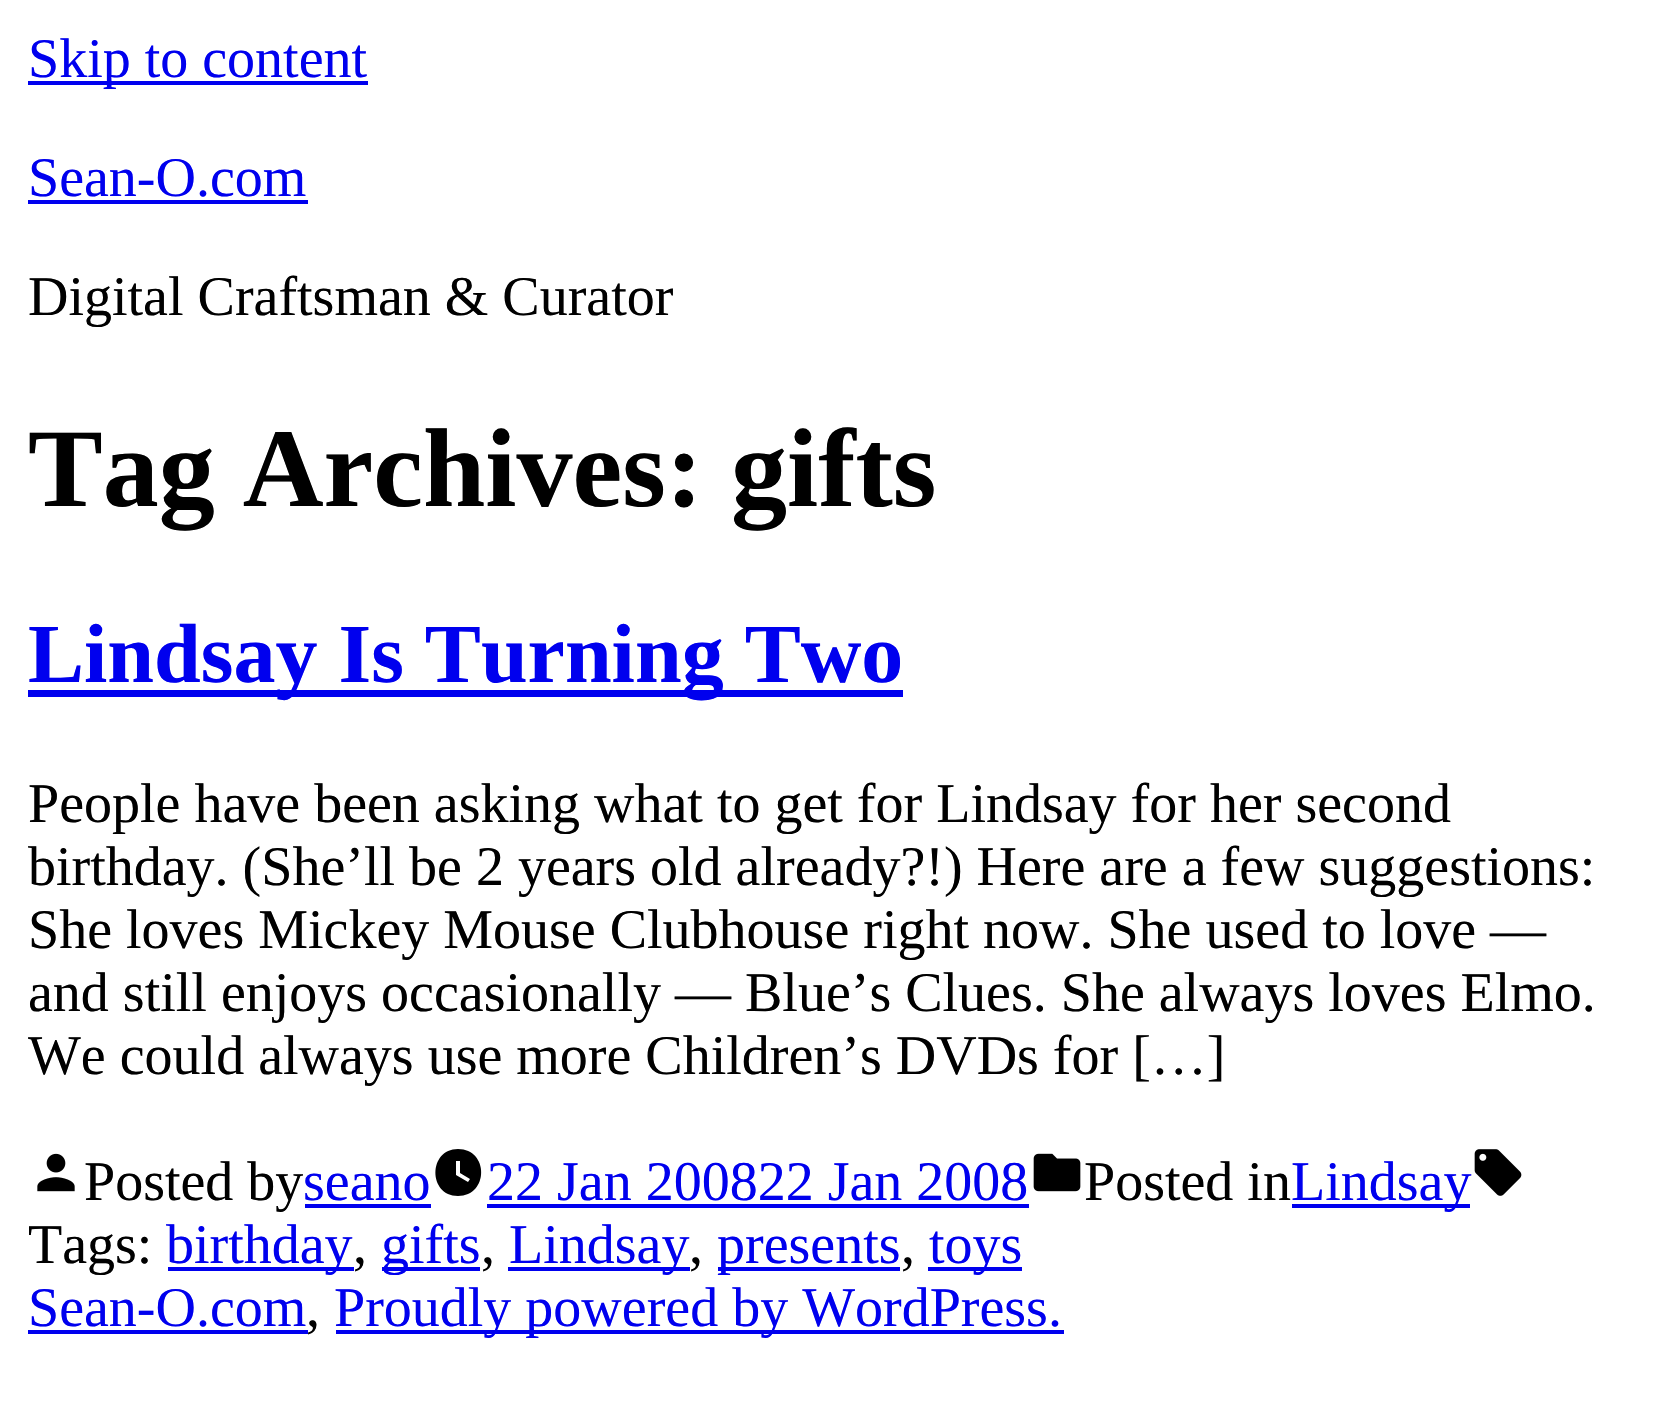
void draw(SkCanvas* canvas) {
    SkPaint paint;
    paint.setAntiAlias(true);
    canvas->clear(0xFFFFFFFF);
    paint.setColor(0xFF0000EE);
    canvas->drawRect(SkRect::MakeXYWH(28, 81, 340, 4), paint);
    SkFont font1(fontMgr->matchFamilyStyle("Liberation Serif", SkFontStyle::Normal()), 56);
    font1.setSubpixel(true);
    canvas->drawString("Skip to content", 28, 77, font1, paint);
    canvas->drawString("Sean-O.com", 28, 196, font1, paint);
    canvas->drawRect(SkRect::MakeXYWH(28, 200, 280, 4), paint);
    paint.setColor(0xFF000000);
    canvas->drawString("Digital Craftsman & Curator", 28, 315, font1, paint);
    SkFont font2(fontMgr->matchFamilyStyle("Liberation Serif", SkFontStyle::Bold()), 112);
    font2.setSubpixel(true);
    canvas->drawString("Tag Archives: gifts", 28, 506, font2, paint);
    paint.setColor(0xFF0000EE);
    canvas->drawRect(SkRect::MakeXYWH(28, 690, 875, 7), paint);
    SkFont font3(fontMgr->matchFamilyStyle("Liberation Serif", SkFontStyle::Bold()), 84);
    font3.setSubpixel(true);
    canvas->drawString("Lindsay Is Turning Two", 28, 682, font3, paint);
    paint.setColor(0xFF000000);
    canvas->drawString("People have been asking what to get for Lindsay for her second", 28, 822, font1, paint);
    canvas->drawString("birthday. (She’ll be 2 years old already?!) Here are a few suggestions:", 28, 885, font1, paint);
    canvas->drawString("She loves Mickey Mouse Clubhouse right now. She used to love —", 28, 948, font1, paint);
    canvas->drawString("and still enjoys occasionally — Blue’s Clues. She always loves Elmo.", 28, 1011, font1, paint);
    canvas->drawString("We could always use more Children’s DVDs for […]", 28, 1074, font1, paint);
    canvas->drawImageRect(SkImages::DeferredFromEncodedData(SkData::MakeFromFileName("img1.png")), SkRect::MakeXYWH(37, 1153, 38, 39), SkSamplingOptions());
    canvas->drawString("Posted by", 84, 1200, font1, paint);
    paint.setColor(0xFF0000EE);
    canvas->drawString("seano", 303, 1200, font1, paint);
    canvas->drawRect(SkRect::MakeXYWH(305, 1204, 126, 4), paint);
    canvas->drawString("22 Jan 200822 Jan 2008", 487, 1200, font1, paint);
    canvas->drawRect(SkRect::MakeXYWH(487, 1204, 542, 4), paint);
    paint.setColor(0xFF000000);
    canvas->drawPath(SkPathBuilder().moveTo(458, 1149).cubicTo(428, 1149, 428, 1196, 458, 1196).cubicTo(489, 1196, 489, 1149, 458, 1149).close().moveTo(468, 1182).lineTo(456, 1175).lineTo(456, 1161).lineTo(460, 1161).lineTo(460, 1173).lineTo(470, 1179).close().detach(), paint);
    canvas->drawImageRect(SkImages::DeferredFromEncodedData(SkData::MakeFromFileName("img2.png")), SkRect::MakeXYWH(1033, 1153, 48, 39), SkSamplingOptions());
    canvas->drawString("Posted in", 1084, 1200, font1, paint);
    paint.setColor(0xFF0000EE);
    canvas->drawRect(SkRect::MakeXYWH(1292, 1204, 178, 4), paint);
    canvas->drawString("Lindsay", 1291, 1200, font1, paint);
    canvas->drawImageRect(SkImages::DeferredFromEncodedData(SkData::MakeFromFileName("img3.png")), SkRect::MakeXYWH(1474, 1149, 48, 47), SkSamplingOptions());
    paint.setColor(0xFF000000);
    canvas->drawString("Tags:", 28, 1263, font1, paint);
    paint.setColor(0xFF0000EE);
    canvas->drawRect(SkRect::MakeXYWH(168, 1267, 186, 4), paint);
    canvas->drawString("birthday", 166, 1263, font1, paint);
    paint.setColor(0xFF000000);
    canvas->drawString(",", 353, 1263, font1, paint);
    paint.setColor(0xFF0000EE);
    canvas->drawRect(SkRect::MakeXYWH(382, 1267, 98, 4), paint);
    canvas->drawString("gifts", 381, 1263, font1, paint);
    paint.setColor(0xFF000000);
    canvas->drawString(",", 481, 1263, font1, paint);
    paint.setColor(0xFF0000EE);
    canvas->drawRect(SkRect::MakeXYWH(508, 1267, 182, 4), paint);
    canvas->drawString("Lindsay", 509, 1263, font1, paint);
    paint.setColor(0xFF000000);
    canvas->drawString(",", 689, 1263, font1, paint);
    paint.setColor(0xFF0000EE);
    canvas->drawRect(SkRect::MakeXYWH(718, 1267, 182, 4), paint);
    canvas->drawString("presents", 717, 1263, font1, paint);
    paint.setColor(0xFF000000);
    canvas->drawString(",", 901, 1263, font1, paint);
    paint.setColor(0xFF0000EE);
    canvas->drawRect(SkRect::MakeXYWH(928, 1267, 94, 4), paint);
    canvas->drawString("toys", 929, 1263, font1, paint);
    canvas->drawString("Sean-O.com", 28, 1326, font1, paint);
    canvas->drawRect(SkRect::MakeXYWH(28, 1330, 280, 4), paint);
    paint.setColor(0xFF000000);
    canvas->drawString(",", 306, 1326, font1, paint);
    paint.setColor(0xFF0000EE);
    canvas->drawRect(SkRect::MakeXYWH(336, 1330, 728, 4), paint);
    canvas->drawString("Proudly powered by WordPress.", 334, 1326, font1, paint);
}
